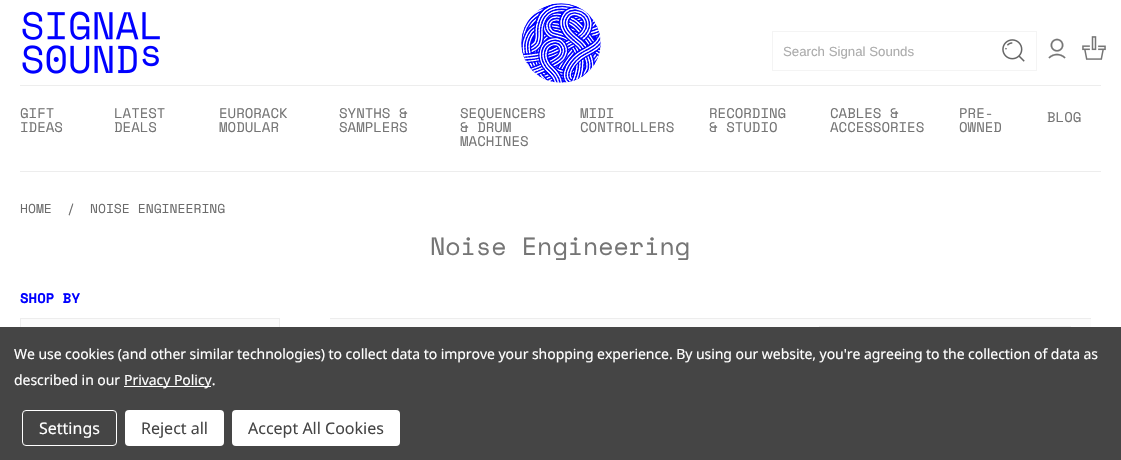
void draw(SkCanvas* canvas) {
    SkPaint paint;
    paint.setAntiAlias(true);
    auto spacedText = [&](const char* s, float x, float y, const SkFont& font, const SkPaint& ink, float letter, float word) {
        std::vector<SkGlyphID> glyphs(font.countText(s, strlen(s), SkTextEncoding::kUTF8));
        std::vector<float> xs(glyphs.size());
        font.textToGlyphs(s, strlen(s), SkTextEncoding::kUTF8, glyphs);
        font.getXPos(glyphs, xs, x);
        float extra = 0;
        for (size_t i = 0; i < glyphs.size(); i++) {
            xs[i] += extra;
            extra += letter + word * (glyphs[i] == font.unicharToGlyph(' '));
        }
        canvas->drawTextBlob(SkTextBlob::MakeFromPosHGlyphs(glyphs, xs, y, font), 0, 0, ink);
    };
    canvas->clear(0xFFFFFFFF);
    canvas->drawImageRect(SkImages::DeferredFromEncodedData(SkData::MakeFromFileName("img1.png")), SkRect::MakeXYWH(521, 3, 80, 80), SkSamplingOptions());
    canvas->drawImageRect(SkImages::DeferredFromEncodedData(SkData::MakeFromFileName("img2.png")), SkRect::MakeXYWH(22, 11, 138, 63), SkSamplingOptions());
    canvas->drawImageRect(SkImages::DeferredFromEncodedData(SkData::MakeFromFileName("img3.png")), SkRect::MakeXYWH(1002, 39, 23, 23), SkSamplingOptions());
    paint.setStyle(SkPaint::kStroke_Style);
    paint.setStrokeWidth(1);
    paint.setColor(0xFFF4F4F4);
    canvas->drawRect(SkRect::MakeXYWH(772.5f, 31.5f, 264, 39), paint);
    SkFont font1(fontMgr->matchFamilyStyle("Liberation Sans", SkFontStyle::Normal()), 13.25f);
    font1.setSubpixel(true);
    paint.setStyle(SkPaint::kFill_Style);
    paint.setColor(0xFFACACAC);
    canvas->drawString("Search Signal Sounds", 783, 56, font1, paint);
    canvas->drawImageRect(SkImages::DeferredFromEncodedData(SkData::MakeFromFileName("img4.png")), SkRect::MakeXYWH(1048, 38, 18, 21), SkSamplingOptions());
    canvas->drawImageRect(SkImages::DeferredFromEncodedData(SkData::MakeFromFileName("img5.png")), SkRect::MakeXYWH(1082, 36, 24, 24), SkSamplingOptions());
    paint.setColor(0xFFEDEDED);
    canvas->drawRect(SkRect::MakeXYWH(20, 85, 1081, 1), paint);
    canvas->drawRect(SkRect::MakeXYWH(20, 171, 1081, 1), paint);
    SkFont font2(fontMgr->matchFamilyStyle("Space Mono", SkFontStyle::Normal()), 14);
    font2.setSubpixel(true);
    paint.setColor(0xFF757575);
    canvas->drawString("GIFT", 20, 118, font2, paint);
    canvas->drawString("IDEAS", 20, 132, font2, paint);
    canvas->drawString("LATEST", 114, 118, font2, paint);
    canvas->drawString("DEALS", 114, 132, font2, paint);
    canvas->drawString("EURORACK", 219, 118, font2, paint);
    canvas->drawString("MODULAR", 219, 132, font2, paint);
    canvas->drawString("SYNTHS &", 339, 118, font2, paint);
    canvas->drawString("SAMPLERS", 339, 132, font2, paint);
    canvas->drawString("SEQUENCERS", 460, 118, font2, paint);
    canvas->drawString("& DRUM", 460, 132, font2, paint);
    canvas->drawString("MACHINES", 460, 146, font2, paint);
    canvas->drawString("MIDI", 580, 118, font2, paint);
    canvas->drawString("CONTROLLERS", 580, 132, font2, paint);
    canvas->drawString("RECORDING", 709, 118, font2, paint);
    canvas->drawString("& STUDIO", 709, 132, font2, paint);
    canvas->drawString("CABLES &", 830, 118, font2, paint);
    canvas->drawString("ACCESSORIES", 830, 132, font2, paint);
    canvas->drawString("PRE-", 959, 118, font2, paint);
    canvas->drawString("OWNED", 959, 132, font2, paint);
    canvas->drawString("BLOG", 1047, 122, font2, paint);
    SkFont font3(fontMgr->matchFamilyStyle("Space Mono", SkFontStyle::Normal()), 13);
    font3.setSubpixel(true);
    paint.setColor(0xFF6B6B6B);
    canvas->drawString("HOME", 20, 213, font3, paint);
    canvas->drawString("/", 67, 214, font3, paint);
    canvas->drawString("NOISE ENGINEERING", 90, 213, font3, paint);
    SkFont font4(fontMgr->matchFamilyStyle("Space Mono", SkFontStyle::Normal()), 25);
    font4.setSubpixel(true);
    paint.setColor(0xFF757575);
    canvas->drawString("Noise Engineering", 430, 255, font4, paint);
    SkFont font5(fontMgr->matchFamilyStyle("Space Mono", SkFontStyle::Bold()), 14);
    font5.setSubpixel(true);
    paint.setColor(0xFF0000FF);
    canvas->drawString("SHOP BY", 20, 303, font5, paint);
    paint.setColor(0xFFFBFBFB);
    canvas->drawRect(SkRect::MakeXYWH(21, 319, 258, 8), paint);
    paint.setStyle(SkPaint::kStroke_Style);
    paint.setColor(0xFFEDEDED);
    canvas->drawRect(SkRect::MakeXYWH(20.5f, 318.5f, 259, 38), paint);
    paint.setStyle(SkPaint::kFill_Style);
    paint.setColor(0xFFFBFBFB);
    canvas->drawRect(SkRect::MakeXYWH(330, 319, 761, 8), paint);
    paint.setColor(0xFFEDEDED);
    canvas->drawRect(SkRect::MakeXYWH(330, 318, 761, 1), paint);
    paint.setStyle(SkPaint::kStroke_Style);
    canvas->drawRect(SkRect::MakeXYWH(819.5f, 326.5f, 251, 32), paint);
    paint.setStyle(SkPaint::kFill_Style);
    paint.setColor(0xFF454545);
    canvas->drawRect(SkRect::MakeXYWH(0, 327, 1121, 133), paint);
    SkFont font6(fontMgr->matchFamilyStyle("Noto Sans", SkFontStyle::Normal()), 14);
    font6.setSubpixel(true);
    paint.setColor(0xFFFFFFFF);
    spacedText("We use cookies (and other similar technologies) to collect data to improve your shopping experience. By using our website, you're agreeing to the collection of data as", 14, 359, font6, paint, -0.05f, 0);
    spacedText("described in our", 14, 385, font6, paint, -0.05f, 0);
    canvas->drawRect(SkRect::MakeXYWH(124, 386, 87, 1), paint);
    spacedText("Privacy Policy.", 124, 385, font6, paint, -0.05f, 0);
    paint.setStyle(SkPaint::kStroke_Style);
    canvas->drawRoundRect(SkRect::MakeXYWH(22.5f, 410.5f, 94, 35), 3.5f, 3.5f, paint);
    SkFont font7(fontMgr->matchFamilyStyle("Noto Sans", SkFontStyle::Normal()), 16);
    font7.setSubpixel(true);
    paint.setStyle(SkPaint::kFill_Style);
    canvas->drawString("Settings", 39, 434, font7, paint);
    canvas->drawRoundRect(SkRect::MakeXYWH(125, 410, 99, 36), 4, 4, paint);
    paint.setColor(0xFF454545);
    canvas->drawString("Reject all", 141, 434, font7, paint);
    paint.setColor(0xFFFFFFFF);
    canvas->drawRoundRect(SkRect::MakeXYWH(232, 410, 168, 36), 4, 4, paint);
    paint.setColor(0xFF454545);
    canvas->drawString("Accept All Cookies", 248, 434, font7, paint);
}
